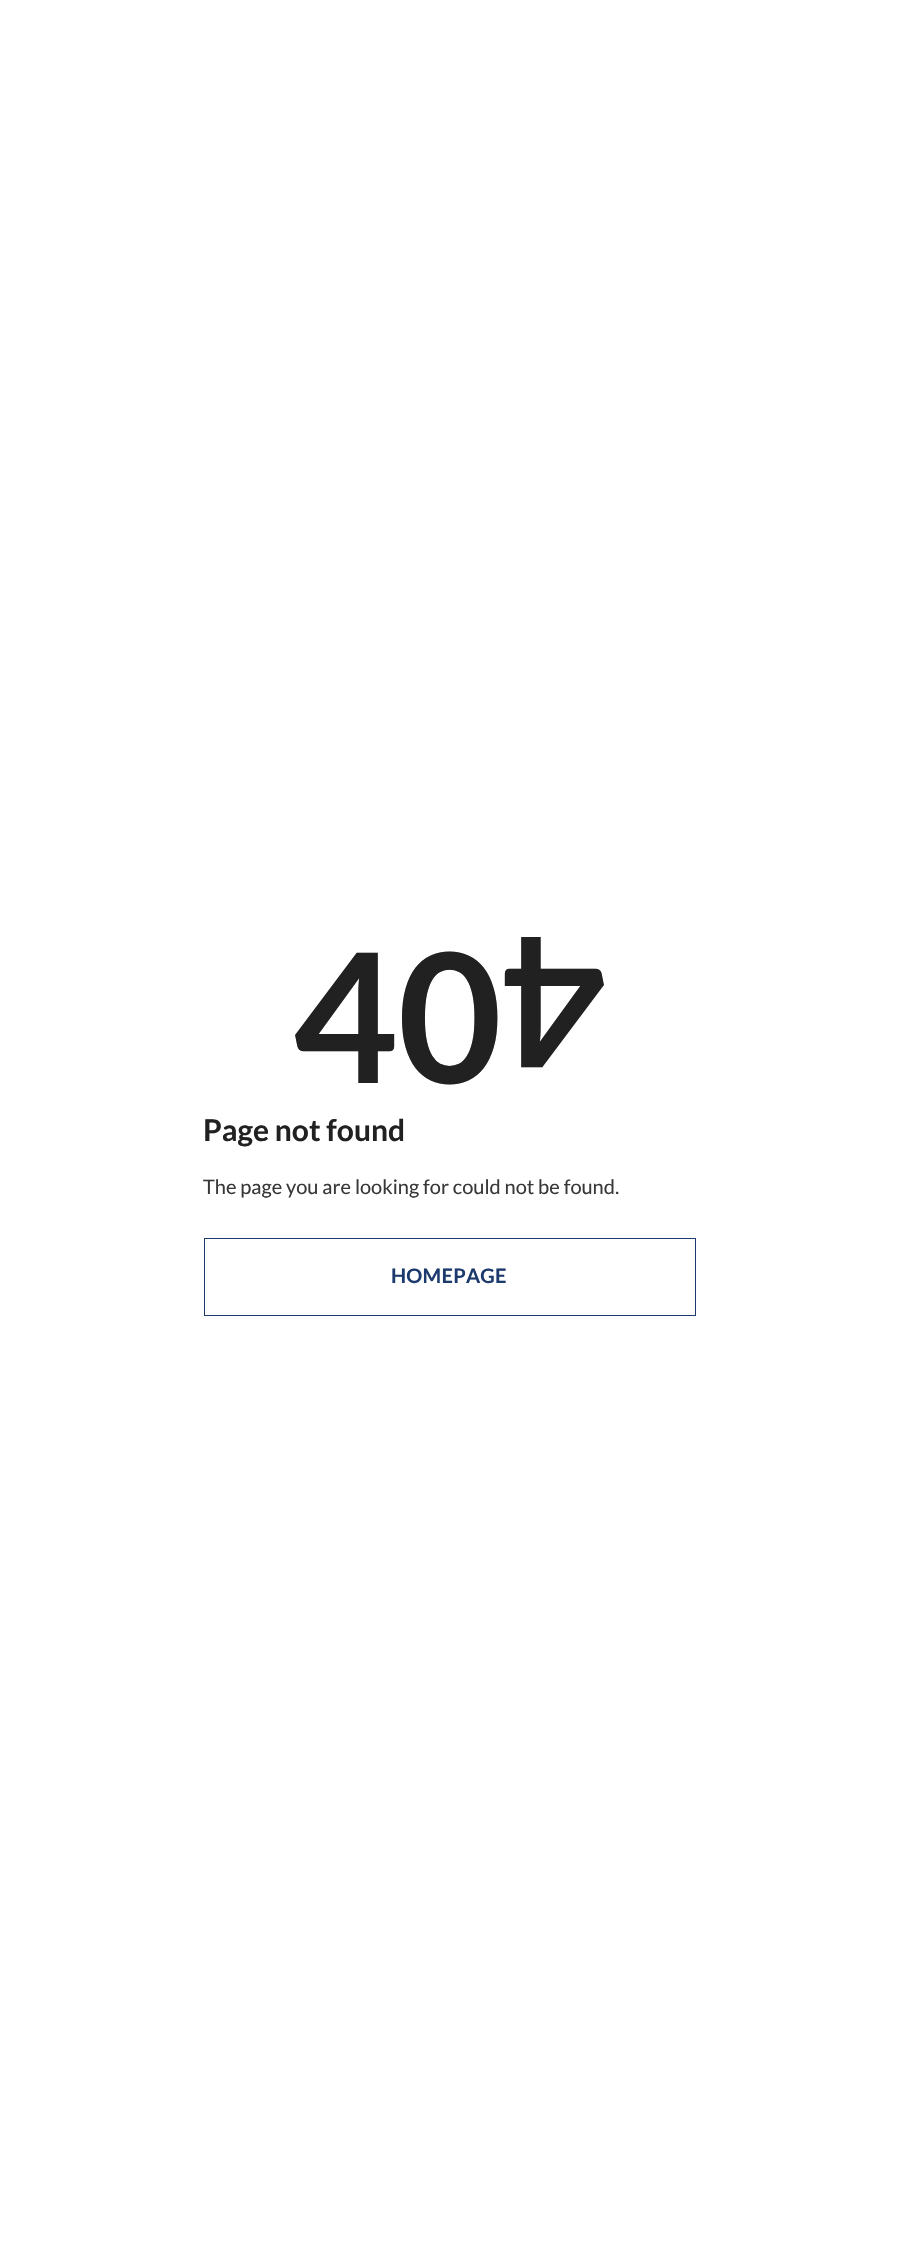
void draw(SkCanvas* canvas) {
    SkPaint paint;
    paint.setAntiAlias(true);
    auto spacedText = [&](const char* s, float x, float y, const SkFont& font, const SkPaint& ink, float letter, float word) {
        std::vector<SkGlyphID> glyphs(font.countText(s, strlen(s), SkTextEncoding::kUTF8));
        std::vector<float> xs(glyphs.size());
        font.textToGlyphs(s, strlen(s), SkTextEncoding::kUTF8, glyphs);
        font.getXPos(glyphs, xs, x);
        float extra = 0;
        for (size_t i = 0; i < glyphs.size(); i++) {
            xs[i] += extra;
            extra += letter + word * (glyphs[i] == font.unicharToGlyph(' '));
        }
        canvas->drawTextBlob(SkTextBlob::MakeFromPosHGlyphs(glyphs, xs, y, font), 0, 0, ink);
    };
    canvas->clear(0xFFFFFFFF);
    SkFont font1(fontMgr->matchFamilyStyle("Lato", SkFontStyle::Bold()), 180);
    font1.setSubpixel(true);
    paint.setColor(0xFF212121);
    canvas->drawString("40", 293, 1083, font1, paint);
    canvas->save();
    canvas->rotate(180, 606, 937);
    canvas->drawString("4", 606, 937, font1, paint);
    canvas->restore();
    SkFont font2(fontMgr->matchFamilyStyle("Lato", SkFontStyle::Bold()), 30);
    font2.setSubpixel(true);
    canvas->drawString("Page not found", 203, 1141, font2, paint);
    SkFont font3(fontMgr->matchFamilyStyle("Lato", SkFontStyle::Normal()), 20);
    font3.setSubpixel(true);
    paint.setColor(0xFF383838);
    canvas->drawString("The page you are looking for could not be found.", 203, 1194, font3, paint);
    paint.setStyle(SkPaint::kStroke_Style);
    paint.setStrokeWidth(1);
    paint.setColor(0xFF1C3A6D);
    canvas->drawRect(SkRect::MakeXYWH(204.5f, 1238.5f, 491, 77), paint);
    SkFont font4(fontMgr->matchFamilyStyle("Lato", SkFontStyle::Bold()), 20);
    font4.setSubpixel(true);
    paint.setStyle(SkPaint::kFill_Style);
    spacedText("HOMEPAGE", 391, 1283, font4, paint, 0.25f, 0);
}
